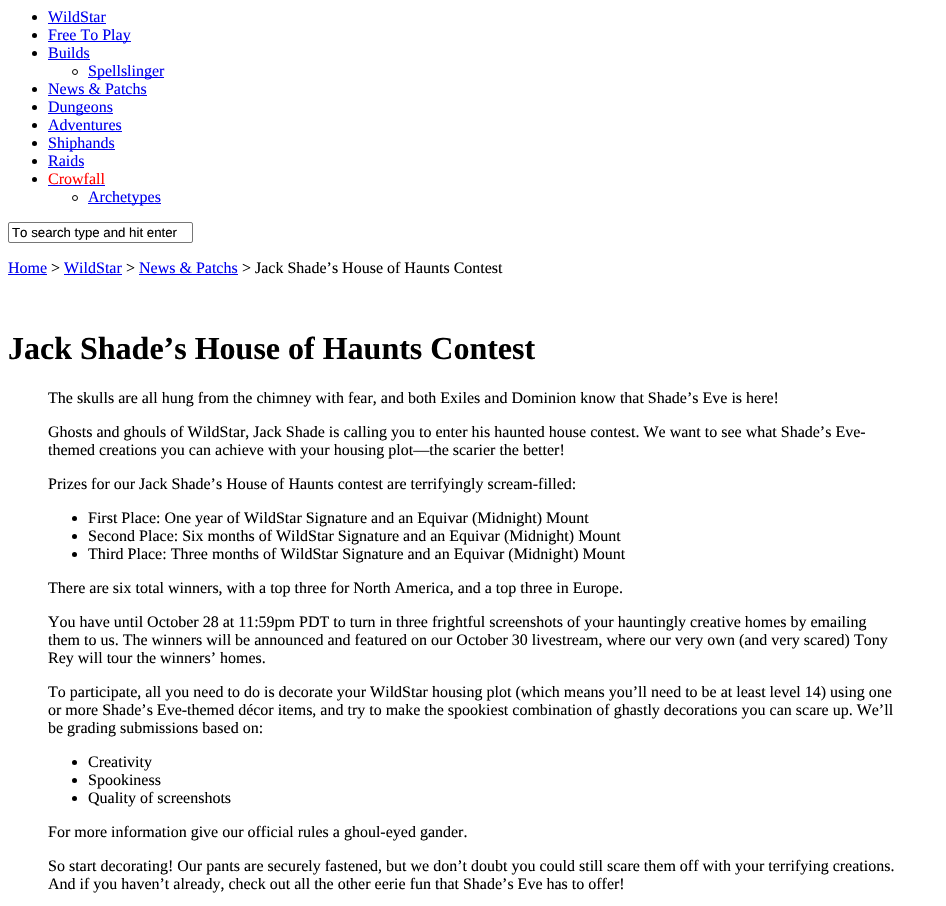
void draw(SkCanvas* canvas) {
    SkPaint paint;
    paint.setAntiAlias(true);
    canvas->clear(0xFFFFFFFF);
    paint.setColor(0xFF000000);
    canvas->drawCircle(34.5f, 17.5f, 2.5f, paint);
    SkFont font1(fontMgr->matchFamilyStyle("Liberation Serif", SkFontStyle::Normal()), 16);
    font1.setSubpixel(true);
    paint.setColor(0xFF0000EE);
    canvas->drawString("WildStar", 48, 22, font1, paint);
    canvas->drawRect(SkRect::MakeXYWH(48, 23, 58, 1), paint);
    paint.setColor(0xFF000000);
    canvas->drawCircle(34.5f, 35.5f, 2.5f, paint);
    paint.setColor(0xFF0000EE);
    canvas->drawRect(SkRect::MakeXYWH(48, 41, 83, 1), paint);
    canvas->drawString("Free To Play", 48, 40, font1, paint);
    paint.setColor(0xFF000000);
    canvas->drawCircle(34.5f, 53.5f, 2.5f, paint);
    paint.setColor(0xFF0000EE);
    canvas->drawString("Builds", 48, 58, font1, paint);
    canvas->drawRect(SkRect::MakeXYWH(48, 59, 42, 1), paint);
    paint.setStyle(SkPaint::kStroke_Style);
    paint.setStrokeWidth(1);
    paint.setColor(0xFF000000);
    canvas->drawCircle(75, 72, 2.5f, paint);
    paint.setStyle(SkPaint::kFill_Style);
    paint.setColor(0xFF0000EE);
    canvas->drawRect(SkRect::MakeXYWH(88, 77, 76, 1), paint);
    canvas->drawString("Spellslinger", 88, 76, font1, paint);
    paint.setColor(0xFF000000);
    canvas->drawCircle(34.5f, 89.5f, 2.5f, paint);
    paint.setColor(0xFF0000EE);
    canvas->drawString("News & Patchs", 48, 94, font1, paint);
    canvas->drawRect(SkRect::MakeXYWH(48, 95, 99, 1), paint);
    paint.setColor(0xFF000000);
    canvas->drawCircle(34.5f, 107.5f, 2.5f, paint);
    paint.setColor(0xFF0000EE);
    canvas->drawRect(SkRect::MakeXYWH(48, 113, 65, 1), paint);
    canvas->drawString("Dungeons", 48, 112, font1, paint);
    paint.setColor(0xFF000000);
    canvas->drawCircle(34.5f, 125.5f, 2.5f, paint);
    paint.setColor(0xFF0000EE);
    canvas->drawString("Adventures", 48, 130, font1, paint);
    canvas->drawRect(SkRect::MakeXYWH(48, 131, 74, 1), paint);
    paint.setColor(0xFF000000);
    canvas->drawCircle(34.5f, 143.5f, 2.5f, paint);
    paint.setColor(0xFF0000EE);
    canvas->drawRect(SkRect::MakeXYWH(48, 149, 67, 1), paint);
    canvas->drawString("Shiphands", 48, 148, font1, paint);
    paint.setColor(0xFF000000);
    canvas->drawCircle(34.5f, 161.5f, 2.5f, paint);
    paint.setColor(0xFF0000EE);
    canvas->drawString("Raids", 48, 166, font1, paint);
    canvas->drawRect(SkRect::MakeXYWH(48, 167, 36, 1), paint);
    paint.setColor(0xFF000000);
    canvas->drawCircle(34.5f, 179.5f, 2.5f, paint);
    paint.setColor(0xFFFF0000);
    canvas->drawString("Crowfall", 48, 184, font1, paint);
    paint.setColor(0xFF0000EE);
    canvas->drawRect(SkRect::MakeXYWH(48, 185, 57, 1), paint);
    paint.setStyle(SkPaint::kStroke_Style);
    paint.setColor(0xFF000000);
    canvas->drawCircle(75, 198, 2.5f, paint);
    paint.setStyle(SkPaint::kFill_Style);
    paint.setColor(0xFF0000EE);
    canvas->drawRect(SkRect::MakeXYWH(88, 203, 73, 1), paint);
    canvas->drawString("Archetypes", 88, 202, font1, paint);
    paint.setStyle(SkPaint::kStroke_Style);
    paint.setColor(0xFF767676);
    canvas->drawRoundRect(SkRect::MakeXYWH(8.5f, 222.5f, 184, 20), 1.5f, 1.5f, paint);
    SkFont font2(fontMgr->matchFamilyStyle("Liberation Sans", SkFontStyle::Normal()), 13.25f);
    font2.setSubpixel(true);
    paint.setStyle(SkPaint::kFill_Style);
    paint.setColor(0xFF000000);
    canvas->drawString("To search type and hit enter", 12, 237, font2, paint);
    paint.setColor(0xFF0000EE);
    canvas->drawString("Home", 8, 273, font1, paint);
    canvas->drawRect(SkRect::MakeXYWH(8, 274, 39, 1), paint);
    paint.setColor(0xFF000000);
    canvas->drawString(">", 51, 273, font1, paint);
    paint.setColor(0xFF0000EE);
    canvas->drawString("WildStar", 64, 273, font1, paint);
    canvas->drawRect(SkRect::MakeXYWH(64, 274, 58, 1), paint);
    paint.setColor(0xFF000000);
    canvas->drawString(">", 126, 273, font1, paint);
    paint.setColor(0xFF0000EE);
    canvas->drawString("News & Patchs", 139, 273, font1, paint);
    canvas->drawRect(SkRect::MakeXYWH(139, 274, 99, 1), paint);
    paint.setColor(0xFF000000);
    canvas->drawString("> Jack Shade’s House of Haunts Contest", 242, 273, font1, paint);
    SkFont font3(fontMgr->matchFamilyStyle("Liberation Serif", SkFontStyle::Bold()), 32);
    font3.setSubpixel(true);
    canvas->drawString("Jack Shade’s House of Haunts Contest", 8, 359, font3, paint);
    canvas->drawString("The skulls are all hung from the chimney with fear, and both Exiles and Dominion know that Shade’s Eve is here!", 48, 403, font1, paint);
    canvas->drawString("Ghosts and ghouls of WildStar, Jack Shade is calling you to enter his haunted house contest. We want to see what Shade’s Eve-", 48, 437, font1, paint);
    canvas->drawString("themed creations you can achieve with your housing plot—the scarier the better!", 48, 455, font1, paint);
    canvas->drawString("Prizes for our Jack Shade’s House of Haunts contest are terrifyingly scream-filled:", 48, 489, font1, paint);
    canvas->drawCircle(74.5f, 518.5f, 2.5f, paint);
    canvas->drawString("First Place: One year of WildStar Signature and an Equivar (Midnight) Mount", 88, 523, font1, paint);
    canvas->drawCircle(74.5f, 536.5f, 2.5f, paint);
    canvas->drawString("Second Place: Six months of WildStar Signature and an Equivar (Midnight) Mount", 88, 541, font1, paint);
    canvas->drawCircle(74.5f, 554.5f, 2.5f, paint);
    canvas->drawString("Third Place: Three months of WildStar Signature and an Equivar (Midnight) Mount", 88, 559, font1, paint);
    canvas->drawString("There are six total winners, with a top three for North America, and a top three in Europe.", 48, 593, font1, paint);
    canvas->drawString("You have until October 28 at 11:59pm PDT to turn in three frightful screenshots of your hauntingly creative homes by emailing", 48, 627, font1, paint);
    canvas->drawString("them to us. The winners will be announced and featured on our October 30 livestream, where our very own (and very scared) Tony", 48, 645, font1, paint);
    canvas->drawString("Rey will tour the winners’ homes.", 48, 663, font1, paint);
    canvas->drawString("To participate, all you need to do is decorate your WildStar housing plot (which means you’ll need to be at least level 14) using one", 48, 697, font1, paint);
    canvas->drawString("or more Shade’s Eve-themed décor items, and try to make the spookiest combination of ghastly decorations you can scare up. We’ll", 48, 715, font1, paint);
    canvas->drawString("be grading submissions based on:", 48, 733, font1, paint);
    canvas->drawCircle(74.5f, 762.5f, 2.5f, paint);
    canvas->drawString("Creativity", 88, 767, font1, paint);
    canvas->drawCircle(74.5f, 780.5f, 2.5f, paint);
    canvas->drawString("Spookiness", 88, 785, font1, paint);
    canvas->drawCircle(74.5f, 798.5f, 2.5f, paint);
    canvas->drawString("Quality of screenshots", 88, 803, font1, paint);
    canvas->drawString("For more information give our official rules a ghoul-eyed gander.", 48, 837, font1, paint);
    canvas->drawString("So start decorating! Our pants are securely fastened, but we don’t doubt you could still scare them off with your terrifying creations.", 48, 871, font1, paint);
    canvas->drawString("And if you haven’t already, check out all the other eerie fun that Shade’s Eve has to offer!", 48, 889, font1, paint);
}
